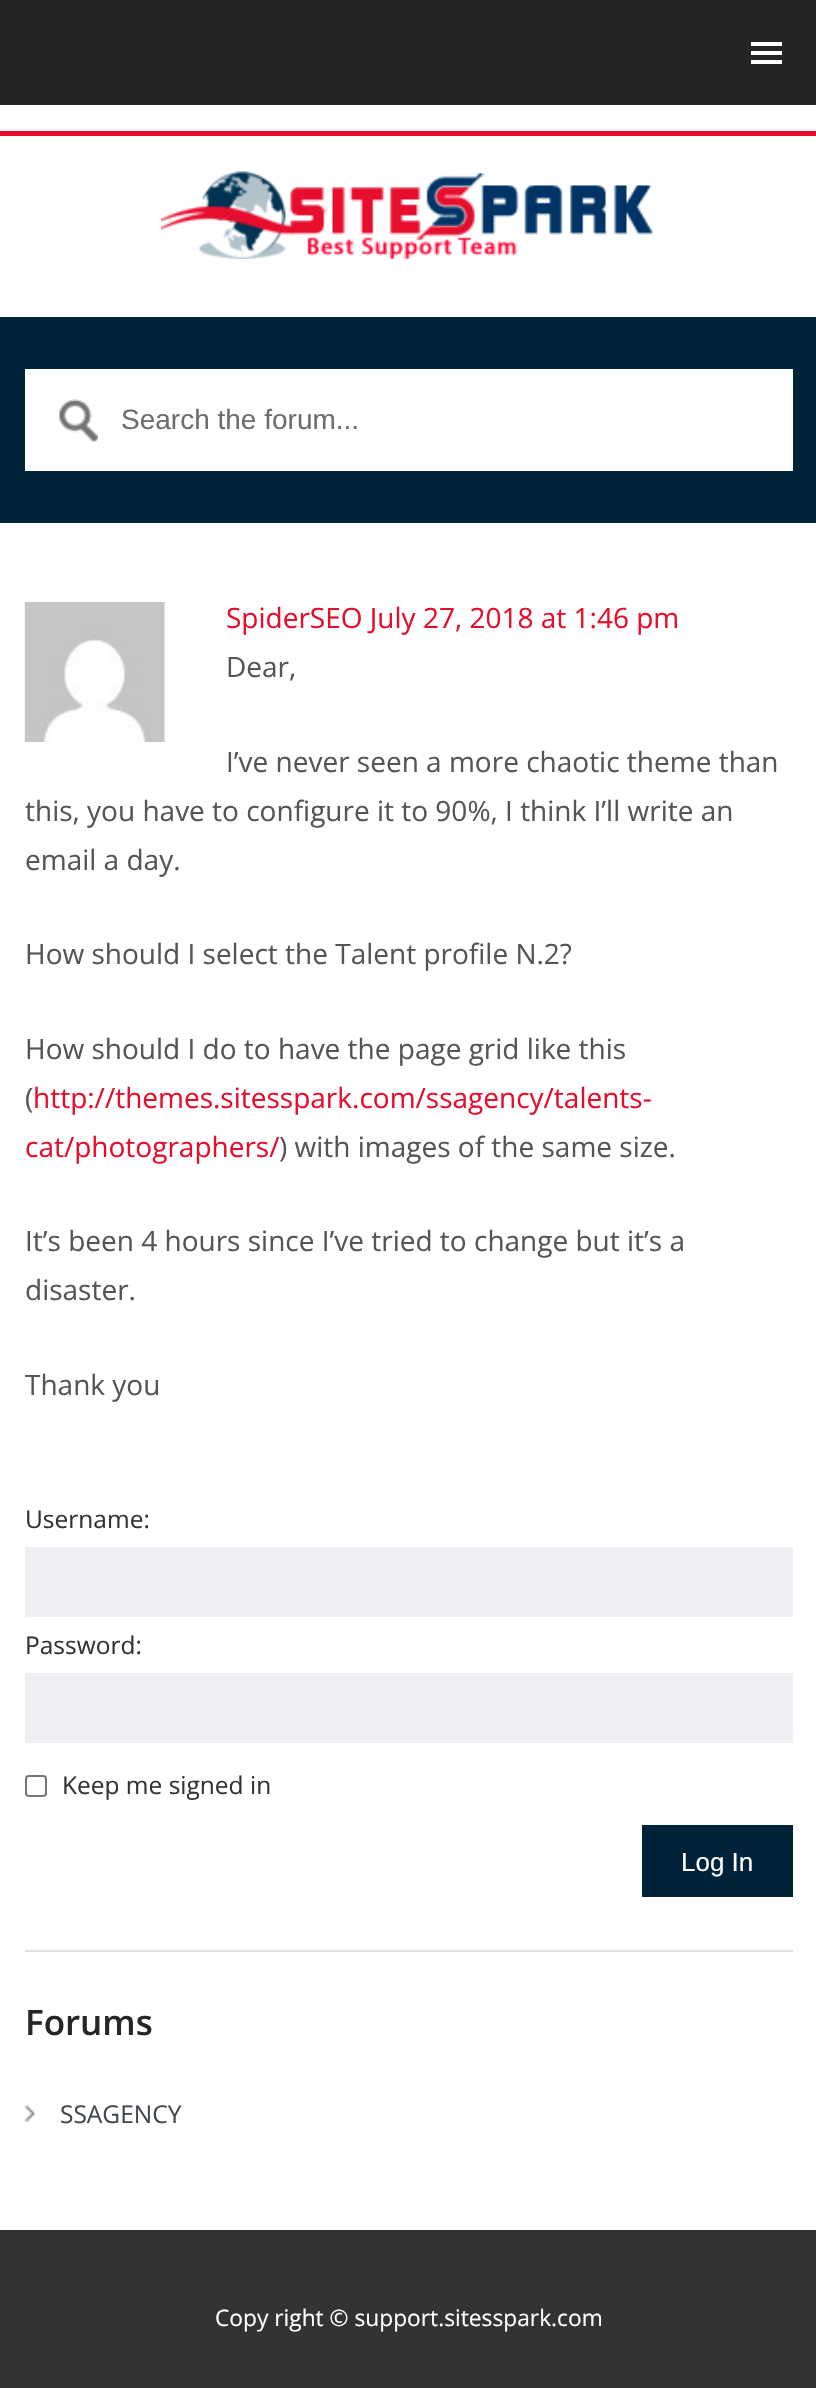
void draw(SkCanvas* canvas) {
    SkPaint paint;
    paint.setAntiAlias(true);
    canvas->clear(0xFFFFFFFF);
    paint.setColor(0xFF242526);
    canvas->drawRect(SkRect::MakeXYWH(0, 0, 816, 105), paint);
    paint.setColor(0xFFFFFFFF);
    canvas->drawRect(SkRect::MakeXYWH(751, 42, 31, 4), paint);
    canvas->drawRect(SkRect::MakeXYWH(751, 51, 31, 4), paint);
    canvas->drawRect(SkRect::MakeXYWH(751, 60, 31, 4), paint);
    paint.setColor(0xFFE60D2D);
    canvas->drawRect(SkRect::MakeXYWH(0, 131, 816, 5), paint);
    canvas->drawImageRect(SkImages::DeferredFromEncodedData(SkData::MakeFromFileName("img1.png")), SkRect::MakeXYWH(161, 171, 493, 88), SkSamplingOptions());
    paint.setColor(0xFF00233A);
    canvas->drawRect(SkRect::MakeXYWH(0, 317, 816, 206), paint);
    paint.setColor(0xFFFFFFFF);
    canvas->drawRect(SkRect::MakeXYWH(25, 369, 768, 102), paint);
    canvas->drawImageRect(SkImages::DeferredFromEncodedData(SkData::MakeFromFileName("img2.png")), SkRect::MakeXYWH(59, 399, 39, 44), SkSamplingOptions());
    SkFont font1(fontMgr->matchFamilyStyle("Liberation Sans", SkFontStyle::Normal()), 28);
    font1.setSubpixel(true);
    paint.setColor(0xFF6E6C6C);
    canvas->drawString("Search the forum...", 121, 429, font1, paint);
    canvas->drawImageRect(SkImages::DeferredFromEncodedData(SkData::MakeFromFileName("img3.png")), SkRect::MakeXYWH(24, 602, 141, 140), SkSamplingOptions());
    SkFont font2(fontMgr->matchFamilyStyle("Open Sans", SkFontStyle::Normal()), 28);
    font2.setSubpixel(true);
    paint.setColor(0xFFE60D2D);
    canvas->drawString("SpiderSEO July 27, 2018 at 1:46 pm", 226, 628, font2, paint);
    paint.setColor(0xFF555555);
    canvas->drawString("Dear,", 226, 677, font2, paint);
    canvas->drawString("I’ve never seen a more chaotic theme than", 226, 772, font2, paint);
    canvas->drawString("this, you have to configure it to 90%, I think I’ll write an", 25, 821, font2, paint);
    canvas->drawString("email a day.", 25, 870, font2, paint);
    canvas->drawString("How should I select the Talent profile N.2?", 25, 964, font2, paint);
    canvas->drawString("How should I do to have the page grid like this", 25, 1059, font2, paint);
    canvas->drawString("(", 25, 1108, font2, paint);
    paint.setColor(0xFFE60D2D);
    canvas->drawString("http://themes.sitesspark.com/ssagency/talents-", 33, 1108, font2, paint);
    canvas->drawString("cat/photographers/", 25, 1157, font2, paint);
    paint.setColor(0xFF555555);
    canvas->drawString(") with images of the same size.", 279, 1157, font2, paint);
    canvas->drawString("It’s been 4 hours since I’ve tried to change but it’s a", 25, 1251, font2, paint);
    canvas->drawString("disaster.", 25, 1300, font2, paint);
    canvas->drawString("Thank you", 25, 1395, font2, paint);
    paint.setColor(0xFFE0E0E0);
    canvas->drawRect(SkRect::MakeXYWH(25, 1950, 768, 2), paint);
    SkFont font3(fontMgr->matchFamilyStyle("Open Sans", SkFontStyle::Normal()), 24.5f);
    font3.setSubpixel(true);
    paint.setColor(0xFF333333);
    canvas->drawString("Username:", 25, 1528, font3, paint);
    paint.setColor(0xFFEDEFF2);
    canvas->drawRect(SkRect::MakeXYWH(25, 1547, 768, 70), paint);
    paint.setColor(0xFF333333);
    canvas->drawString("Password:", 25, 1654, font3, paint);
    paint.setColor(0xFFEDEFF2);
    canvas->drawRect(SkRect::MakeXYWH(25, 1673, 768, 70), paint);
    paint.setStyle(SkPaint::kStroke_Style);
    paint.setStrokeWidth(2);
    paint.setColor(0xFF767676);
    canvas->drawRoundRect(SkRect::MakeXYWH(26, 1776, 20, 20), 3, 3, paint);
    paint.setStyle(SkPaint::kFill_Style);
    paint.setColor(0xFF333333);
    canvas->drawString("Keep me signed in", 62, 1794, font3, paint);
    paint.setColor(0xFF00233A);
    canvas->drawRect(SkRect::MakeXYWH(642, 1825, 151, 72), paint);
    SkFont font4(fontMgr->matchFamilyStyle("Liberation Sans", SkFontStyle::Normal()), 26);
    font4.setSubpixel(true);
    paint.setColor(0xFFFFFFFF);
    canvas->drawString("Log In", 681, 1871, font4, paint);
    SkFont font5(fontMgr->matchFamilyStyle("Open Sans", SkFontStyle(600, SkFontStyle::kNormal_Width, SkFontStyle::kUpright_Slant)), 35);
    font5.setSubpixel(true);
    paint.setColor(0xFF262626);
    canvas->drawString("Forums", 25, 2035, font5, paint);
    canvas->drawImageRect(SkImages::DeferredFromEncodedData(SkData::MakeFromFileName("img4.png")), SkRect::MakeXYWH(24, 2105, 11, 18), SkSamplingOptions());
    paint.setColor(0xFF41474D);
    canvas->drawString("SSAGENCY", 60, 2123, font3, paint);
    paint.setColor(0xFF333333);
    canvas->drawRect(SkRect::MakeXYWH(0, 2230, 816, 158), paint);
    SkFont font6(fontMgr->matchFamilyStyle("Open Sans", SkFontStyle::Normal()), 22.75f);
    font6.setSubpixel(true);
    paint.setColor(0xFFFFFFFF);
    canvas->drawString("Copy right © support.sitesspark.com", 215, 2326, font6, paint);
}
